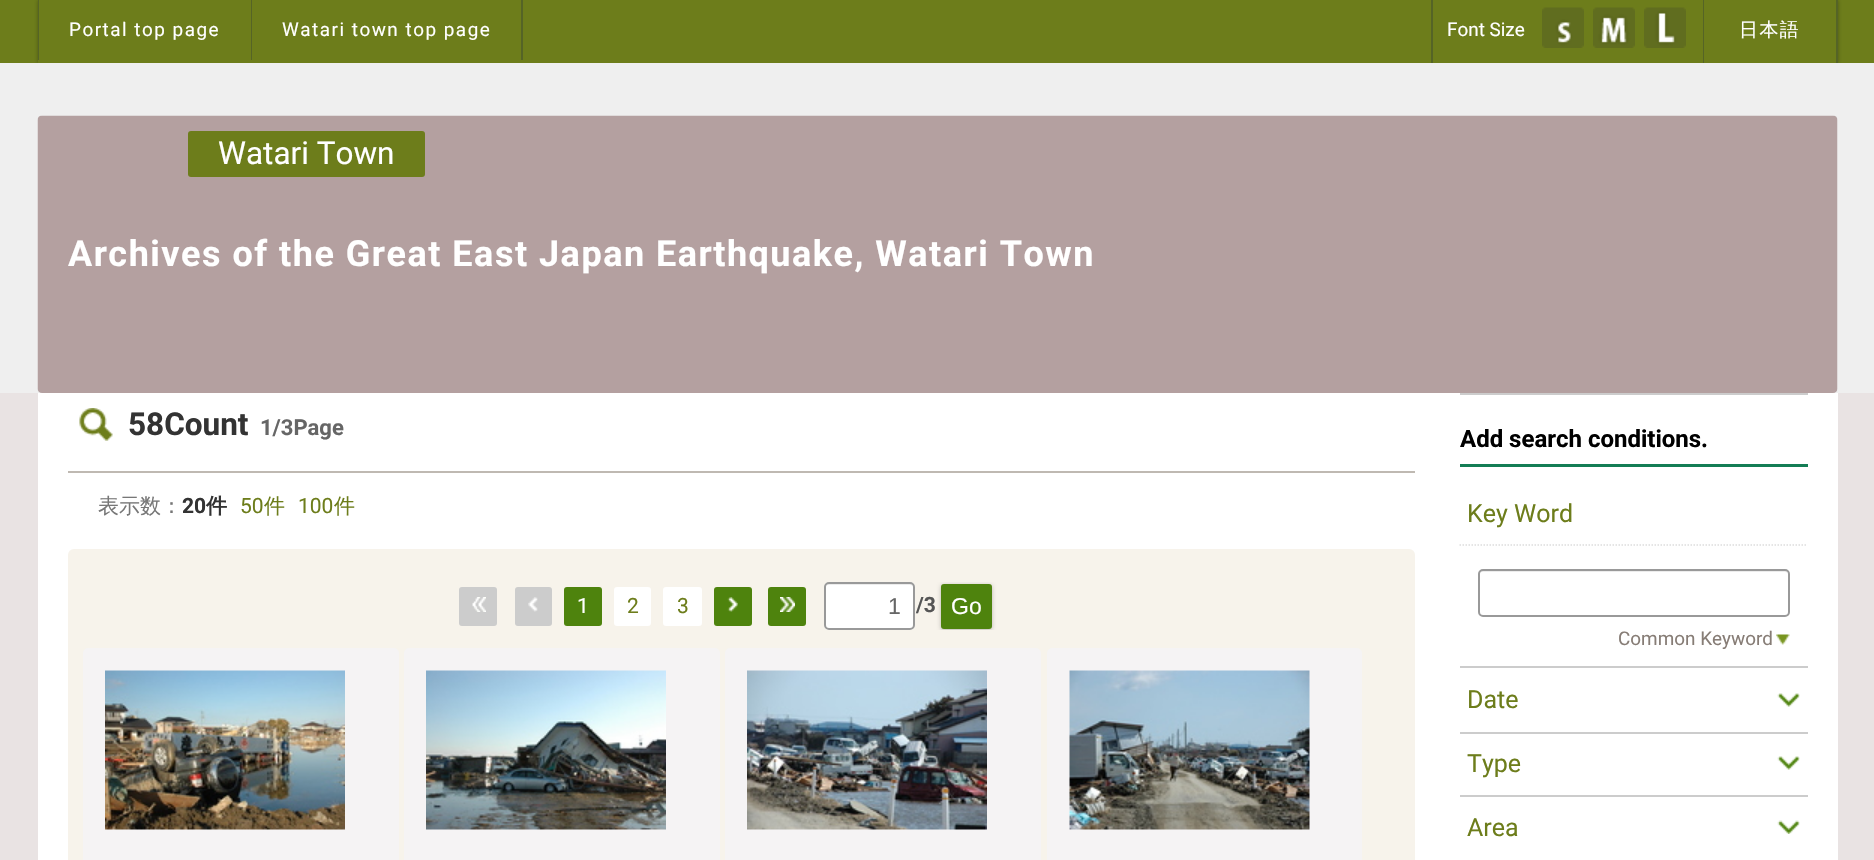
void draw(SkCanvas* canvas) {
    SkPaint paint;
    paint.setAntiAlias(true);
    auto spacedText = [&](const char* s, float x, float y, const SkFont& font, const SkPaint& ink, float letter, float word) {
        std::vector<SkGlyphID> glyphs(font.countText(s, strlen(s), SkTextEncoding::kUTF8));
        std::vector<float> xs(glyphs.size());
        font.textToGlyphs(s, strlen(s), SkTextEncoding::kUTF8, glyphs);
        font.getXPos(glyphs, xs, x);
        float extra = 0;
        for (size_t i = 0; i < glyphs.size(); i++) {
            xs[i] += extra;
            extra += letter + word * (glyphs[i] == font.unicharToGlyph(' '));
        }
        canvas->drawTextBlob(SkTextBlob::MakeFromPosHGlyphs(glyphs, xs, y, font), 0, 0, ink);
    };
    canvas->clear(0xFFE9E3E3);
    paint.setColor(0xFF6D7D1B);
    canvas->drawRect(SkRect::MakeXYWH(0, 0, 1874, 63), paint);
    paint.setColor(0x4D000000);
    paint.setMaskFilter(SkMaskFilter::MakeBlur(kNormal_SkBlurStyle, 2));
    canvas->drawRect(SkRect::MakeXYWH(38, 0, 1800, 63), paint);
    paint.setMaskFilter(nullptr);
    paint.setColor(0xFF6D7D1B);
    canvas->drawRect(SkRect::MakeXYWH(38, 0, 1665, 63), paint);
    paint.setColor(0xFF556426);
    canvas->drawRect(SkRect::MakeXYWH(251, 0, 1, 60), paint);
    canvas->drawRect(SkRect::MakeXYWH(38, 0, 1, 60), paint);
    SkFont font1(fontMgr->matchFamilyStyle("Roboto", SkFontStyle::Normal()), 18.9f);
    font1.setSubpixel(true);
    paint.setColor(0xFFFFFFFF);
    spacedText("Portal top page", 69, 36, font1, paint, 1.5f, 0);
    paint.setColor(0xFF556426);
    canvas->drawRect(SkRect::MakeXYWH(521, 0, 2, 60), paint);
    paint.setColor(0xFFFFFFFF);
    spacedText("Watari town top page", 282, 36, font1, paint, 1.5f, 0);
    paint.setColor(0xFF556426);
    canvas->drawRect(SkRect::MakeXYWH(1703, 0, 1, 63), paint);
    canvas->drawRect(SkRect::MakeXYWH(1431, 0, 2, 63), paint);
    paint.setColor(0xFFFFFFFF);
    canvas->drawString("Font Size", 1447, 36, font1, paint);
    canvas->drawImageRect(SkImages::DeferredFromEncodedData(SkData::MakeFromFileName("img1.png")), SkRect::MakeXYWH(1542, 7, 42, 41), SkSamplingOptions());
    canvas->drawImageRect(SkImages::DeferredFromEncodedData(SkData::MakeFromFileName("img2.png")), SkRect::MakeXYWH(1593, 7, 42, 41), SkSamplingOptions());
    canvas->drawImageRect(SkImages::DeferredFromEncodedData(SkData::MakeFromFileName("img3.png")), SkRect::MakeXYWH(1644, 7, 42, 41), SkSamplingOptions());
    paint.setColor(0xFF556426);
    canvas->drawRect(SkRect::MakeXYWH(1836, 0, 2, 63), paint);
    paint.setColor(0xFF6D7D1B);
    canvas->drawRect(SkRect::MakeXYWH(1704, 0, 132, 63), paint);
    SkFont font2(fontMgr->matchFamilyStyle("WenQuanYi Zen Hei", SkFontStyle(500, SkFontStyle::kNormal_Width, SkFontStyle::kUpright_Slant)), 18.9f);
    font2.setSubpixel(true);
    paint.setColor(0xFFFFFFFF);
    spacedText("日本語", 1739, 36, font2, paint, 1.5f, 0);
    paint.setColor(0xFFEFEFEF);
    canvas->drawRect(SkRect::MakeXYWH(0, 63, 1874, 330), paint);
    canvas->drawImageRect(SkImages::DeferredFromEncodedData(SkData::MakeFromFileName("img4.png")), SkRect::MakeXYWH(37, 115, 1801, 278), SkSamplingOptions());
    paint.setColor(0xFF6D7D1B);
    canvas->drawRoundRect(SkRect::MakeXYWH(188, 131, 237, 46), 3, 3, paint);
    SkFont font3(fontMgr->matchFamilyStyle("Roboto", SkFontStyle::Normal()), 31.5f);
    font3.setSubpixel(true);
    paint.setColor(0xFFFFFFFF);
    canvas->drawString("Watari Town", 218, 164, font3, paint);
    SkFont font4(fontMgr->matchFamilyStyle("Roboto", SkFontStyle::Bold()), 36);
    font4.setSubpixel(true);
    spacedText("Archives of the Great East Japan Earthquake, Watari Town", 68, 266, font4, paint, 1.5f, 0);
    canvas->drawRect(SkRect::MakeXYWH(38, 393, 1800, 467), paint);
    paint.setColor(0xFFBFB9B2);
    canvas->drawRect(SkRect::MakeXYWH(68, 471, 1347, 2), paint);
    canvas->drawImageRect(SkImages::DeferredFromEncodedData(SkData::MakeFromFileName("img5.png")), SkRect::MakeXYWH(79, 408, 34, 33), SkSamplingOptions());
    SkFont font5(fontMgr->matchFamilyStyle("Roboto", SkFontStyle::Bold()), 31.5f);
    font5.setSubpixel(true);
    paint.setColor(0xFF333333);
    canvas->drawString("58Count", 128, 435, font5, paint);
    SkFont font6(fontMgr->matchFamilyStyle("Roboto", SkFontStyle::Bold()), 22);
    font6.setSubpixel(true);
    paint.setColor(0xFF666666);
    canvas->drawString("1/3Page", 260, 435, font6, paint);
    SkFont font7(fontMgr->matchFamilyStyle("WenQuanYi Zen Hei", SkFontStyle(500, SkFontStyle::kNormal_Width, SkFontStyle::kUpright_Slant)), 21);
    font7.setSubpixel(true);
    paint.setColor(0xFF777777);
    canvas->drawString("表示数：", 98, 513, font7, paint);
    SkFont font8(fontMgr->matchFamilyStyle("Roboto", SkFontStyle::Bold()), 21);
    font8.setSubpixel(true);
    paint.setColor(0xFF333333);
    canvas->drawString("20", 182, 513, font8, paint);
    SkFont font9(fontMgr->matchFamilyStyle("WenQuanYi Zen Hei", SkFontStyle::Bold()), 21);
    font9.setSubpixel(true);
    canvas->drawString("件", 206, 513, font9, paint);
    SkFont font10(fontMgr->matchFamilyStyle("Roboto", SkFontStyle::Normal()), 21);
    font10.setSubpixel(true);
    paint.setColor(0xFF6D7D1B);
    canvas->drawString("50", 240, 513, font10, paint);
    canvas->drawString("件", 264, 513, font7, paint);
    canvas->drawString("100", 298, 513, font10, paint);
    canvas->drawString("件", 334, 513, font7, paint);
    paint.setColor(0xFFF7F3EB);
    canvas->drawRoundRect(SkRect::MakeXYWH(68, 549, 1347, 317), 6, 6, paint);
    paint.setColor(0xFFCCCCCC);
    canvas->drawRoundRect(SkRect::MakeXYWH(459, 587, 38, 39), 3, 3, paint);
    canvas->drawImageRect(SkImages::DeferredFromEncodedData(SkData::MakeFromFileName("img6.png")), SkRect::MakeXYWH(472, 597, 14, 15), SkSamplingOptions());
    canvas->drawRoundRect(SkRect::MakeXYWH(515, 587, 37, 39), 3, 3, paint);
    canvas->drawImageRect(SkImages::DeferredFromEncodedData(SkData::MakeFromFileName("img7.png")), SkRect::MakeXYWH(528, 597, 10, 15), SkSamplingOptions());
    paint.setColor(0xFF4E830D);
    canvas->drawRoundRect(SkRect::MakeXYWH(564, 587, 38, 39), 3, 3, paint);
    paint.setColor(0xFFFFFFFF);
    canvas->drawString("1", 577, 613, font10, paint);
    canvas->drawRoundRect(SkRect::MakeXYWH(614, 587, 37, 39), 3, 3, paint);
    paint.setColor(0xFF6D7D1B);
    canvas->drawString("2", 627, 613, font10, paint);
    paint.setColor(0xFFFFFFFF);
    canvas->drawRoundRect(SkRect::MakeXYWH(663, 587, 39, 39), 3, 3, paint);
    paint.setColor(0xFF6D7D1B);
    canvas->drawString("3", 677, 613, font10, paint);
    paint.setColor(0xFF4E830D);
    canvas->drawRoundRect(SkRect::MakeXYWH(714, 587, 38, 39), 3, 3, paint);
    canvas->drawImageRect(SkImages::DeferredFromEncodedData(SkData::MakeFromFileName("img8.png")), SkRect::MakeXYWH(727, 597, 11, 15), SkSamplingOptions());
    canvas->drawRoundRect(SkRect::MakeXYWH(768, 587, 38, 39), 3, 3, paint);
    canvas->drawImageRect(SkImages::DeferredFromEncodedData(SkData::MakeFromFileName("img9.png")), SkRect::MakeXYWH(780, 597, 15, 15), SkSamplingOptions());
    paint.setColor(0xFFFFFFFF);
    canvas->drawRoundRect(SkRect::MakeXYWH(824, 582, 91, 48), 5, 5, paint);
    paint.setColor(0xFFECECEC);
    canvas->drawPath(SkPathBuilder().moveTo(828, 585).lineTo(910, 585).cubicTo(912, 585, 914, 586, 914, 588).cubicTo(914, 580, 901, 584, 897, 584).lineTo(842, 584).cubicTo(838, 584, 825, 580, 825, 588).cubicTo(825, 586, 826, 585, 828, 585).close().detach(), paint);
    paint.setStyle(SkPaint::kStroke_Style);
    paint.setStrokeWidth(2);
    paint.setColor(0xFF999999);
    canvas->drawRoundRect(SkRect::MakeXYWH(825, 583, 89, 46), 4, 4, paint);
    SkFont font11(fontMgr->matchFamilyStyle("Liberation Sans", SkFontStyle::Normal()), 23);
    font11.setSubpixel(true);
    paint.setStyle(SkPaint::kFill_Style);
    paint.setColor(0xFF666666);
    canvas->drawString("1", 888, 614, font11, paint);
    paint.setColor(0xFF555555);
    canvas->drawString("/3", 916, 612, font8, paint);
    canvas->save();
    canvas->clipRect(SkRect::MakeXYWH(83, 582, 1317, 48));
    paint.setColor(0x40000000);
    paint.setMaskFilter(SkMaskFilter::MakeBlur(kNormal_SkBlurStyle, 2));
    canvas->drawRoundRect(SkRect::MakeXYWH(941, 585, 51, 45), 3, 3, paint);
    paint.setMaskFilter(nullptr);
    canvas->restore();
    paint.setColor(0xFF4E830D);
    canvas->drawRoundRect(SkRect::MakeXYWH(941, 584, 51, 45), 3, 3, paint);
    paint.setColor(0xFFFFFFFF);
    canvas->drawString("Go", 951, 614, font11, paint);
    paint.setColor(0xFFF5F3F4);
    canvas->drawRoundRect(SkRect::MakeXYWH(83, 648, 316, 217), 5, 5, paint);
    canvas->drawImageRect(SkImages::DeferredFromEncodedData(SkData::MakeFromFileName("img10.png")), SkRect::MakeXYWH(105, 670, 240, 160), SkSamplingOptions());
    canvas->drawRoundRect(SkRect::MakeXYWH(404, 648, 316, 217), 5, 5, paint);
    canvas->drawImageRect(SkImages::DeferredFromEncodedData(SkData::MakeFromFileName("img11.png")), SkRect::MakeXYWH(426, 670, 240, 160), SkSamplingOptions());
    canvas->drawRoundRect(SkRect::MakeXYWH(725, 648, 316, 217), 5, 5, paint);
    canvas->drawImageRect(SkImages::DeferredFromEncodedData(SkData::MakeFromFileName("img12.png")), SkRect::MakeXYWH(747, 670, 240, 160), SkSamplingOptions());
    canvas->drawRoundRect(SkRect::MakeXYWH(1047, 648, 315, 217), 5, 5, paint);
    canvas->drawImageRect(SkImages::DeferredFromEncodedData(SkData::MakeFromFileName("img13.png")), SkRect::MakeXYWH(1069, 670, 241, 160), SkSamplingOptions());
    paint.setColor(0xFFCCCCCC);
    canvas->drawRect(SkRect::MakeXYWH(1460, 393, 348, 2), paint);
    paint.setColor(0xFF147D55);
    canvas->drawRect(SkRect::MakeXYWH(1460, 464, 348, 3), paint);
    SkFont font12(fontMgr->matchFamilyStyle("Roboto", SkFontStyle::Bold()), 24);
    font12.setSubpixel(true);
    paint.setColor(0xFF000000);
    canvas->drawString("Add search conditions.", 1460, 447, font12, paint);
    paint.setColor(0xFFCCCCCC);
    canvas->drawRect(SkRect::MakeXYWH(1460, 666, 348, 2), paint);
    SkFont font13(fontMgr->matchFamilyStyle("Roboto", SkFontStyle::Normal()), 25);
    font13.setSubpixel(true);
    paint.setColor(0xFF6D7D1B);
    canvas->drawString("Key Word", 1467, 522, font13, paint);
    paint.setStyle(SkPaint::kStroke_Style);
    paint.setStrokeWidth(1.5f);
    paint.setColor(0xFFDDDDDD);
    paint.setPathEffect(SkDashPathEffect::Make({{1.5f, 1.5f}}, 0));
    canvas->drawPath(SkPathBuilder().moveTo(1459.5f, 545).lineTo(1807.5f, 545).detach(), paint);
    paint.setPathEffect(nullptr);
    paint.setStyle(SkPaint::kFill_Style);
    paint.setColor(0xFFECECEC);
    canvas->drawPath(SkPathBuilder().moveTo(1482, 572).lineTo(1785, 572).cubicTo(1787, 572, 1788, 573, 1788, 574).lineTo(1787, 571).lineTo(1786, 570).lineTo(1482, 570).cubicTo(1480, 570, 1479, 572, 1479, 574).cubicTo(1479, 573, 1480, 572, 1482, 572).close().detach(), paint);
    paint.setStyle(SkPaint::kStroke_Style);
    paint.setStrokeWidth(2);
    paint.setColor(0xFF999999);
    canvas->drawRoundRect(SkRect::MakeXYWH(1479, 570, 310, 46), 4, 4, paint);
    canvas->drawImageRect(SkImages::DeferredFromEncodedData(SkData::MakeFromFileName("img14.png")), SkRect::MakeXYWH(1776, 634, 14, 11), SkSamplingOptions());
    paint.setStyle(SkPaint::kFill_Style);
    paint.setColor(0xFF877D76);
    canvas->drawString("Common Keyword", 1618, 645, font1, paint);
    paint.setColor(0xFFCCCCCC);
    canvas->drawRect(SkRect::MakeXYWH(1460, 732, 348, 2), paint);
    canvas->drawImageRect(SkImages::DeferredFromEncodedData(SkData::MakeFromFileName("img15.png")), SkRect::MakeXYWH(1777, 693, 23, 14), SkSamplingOptions());
    paint.setColor(0xFF6D7D1B);
    canvas->drawString("Date", 1467, 708, font13, paint);
    paint.setColor(0xFFCCCCCC);
    canvas->drawRect(SkRect::MakeXYWH(1460, 795, 348, 2), paint);
    canvas->drawImageRect(SkImages::DeferredFromEncodedData(SkData::MakeFromFileName("img15.png")), SkRect::MakeXYWH(1777, 756, 23, 14), SkSamplingOptions());
    paint.setColor(0xFF6D7D1B);
    canvas->drawString("Type", 1467, 772, font13, paint);
    canvas->drawImageRect(SkImages::DeferredFromEncodedData(SkData::MakeFromFileName("img16.png")), SkRect::MakeXYWH(1777, 820, 23, 14), SkSamplingOptions());
    canvas->drawString("Area", 1467, 836, font13, paint);
}
